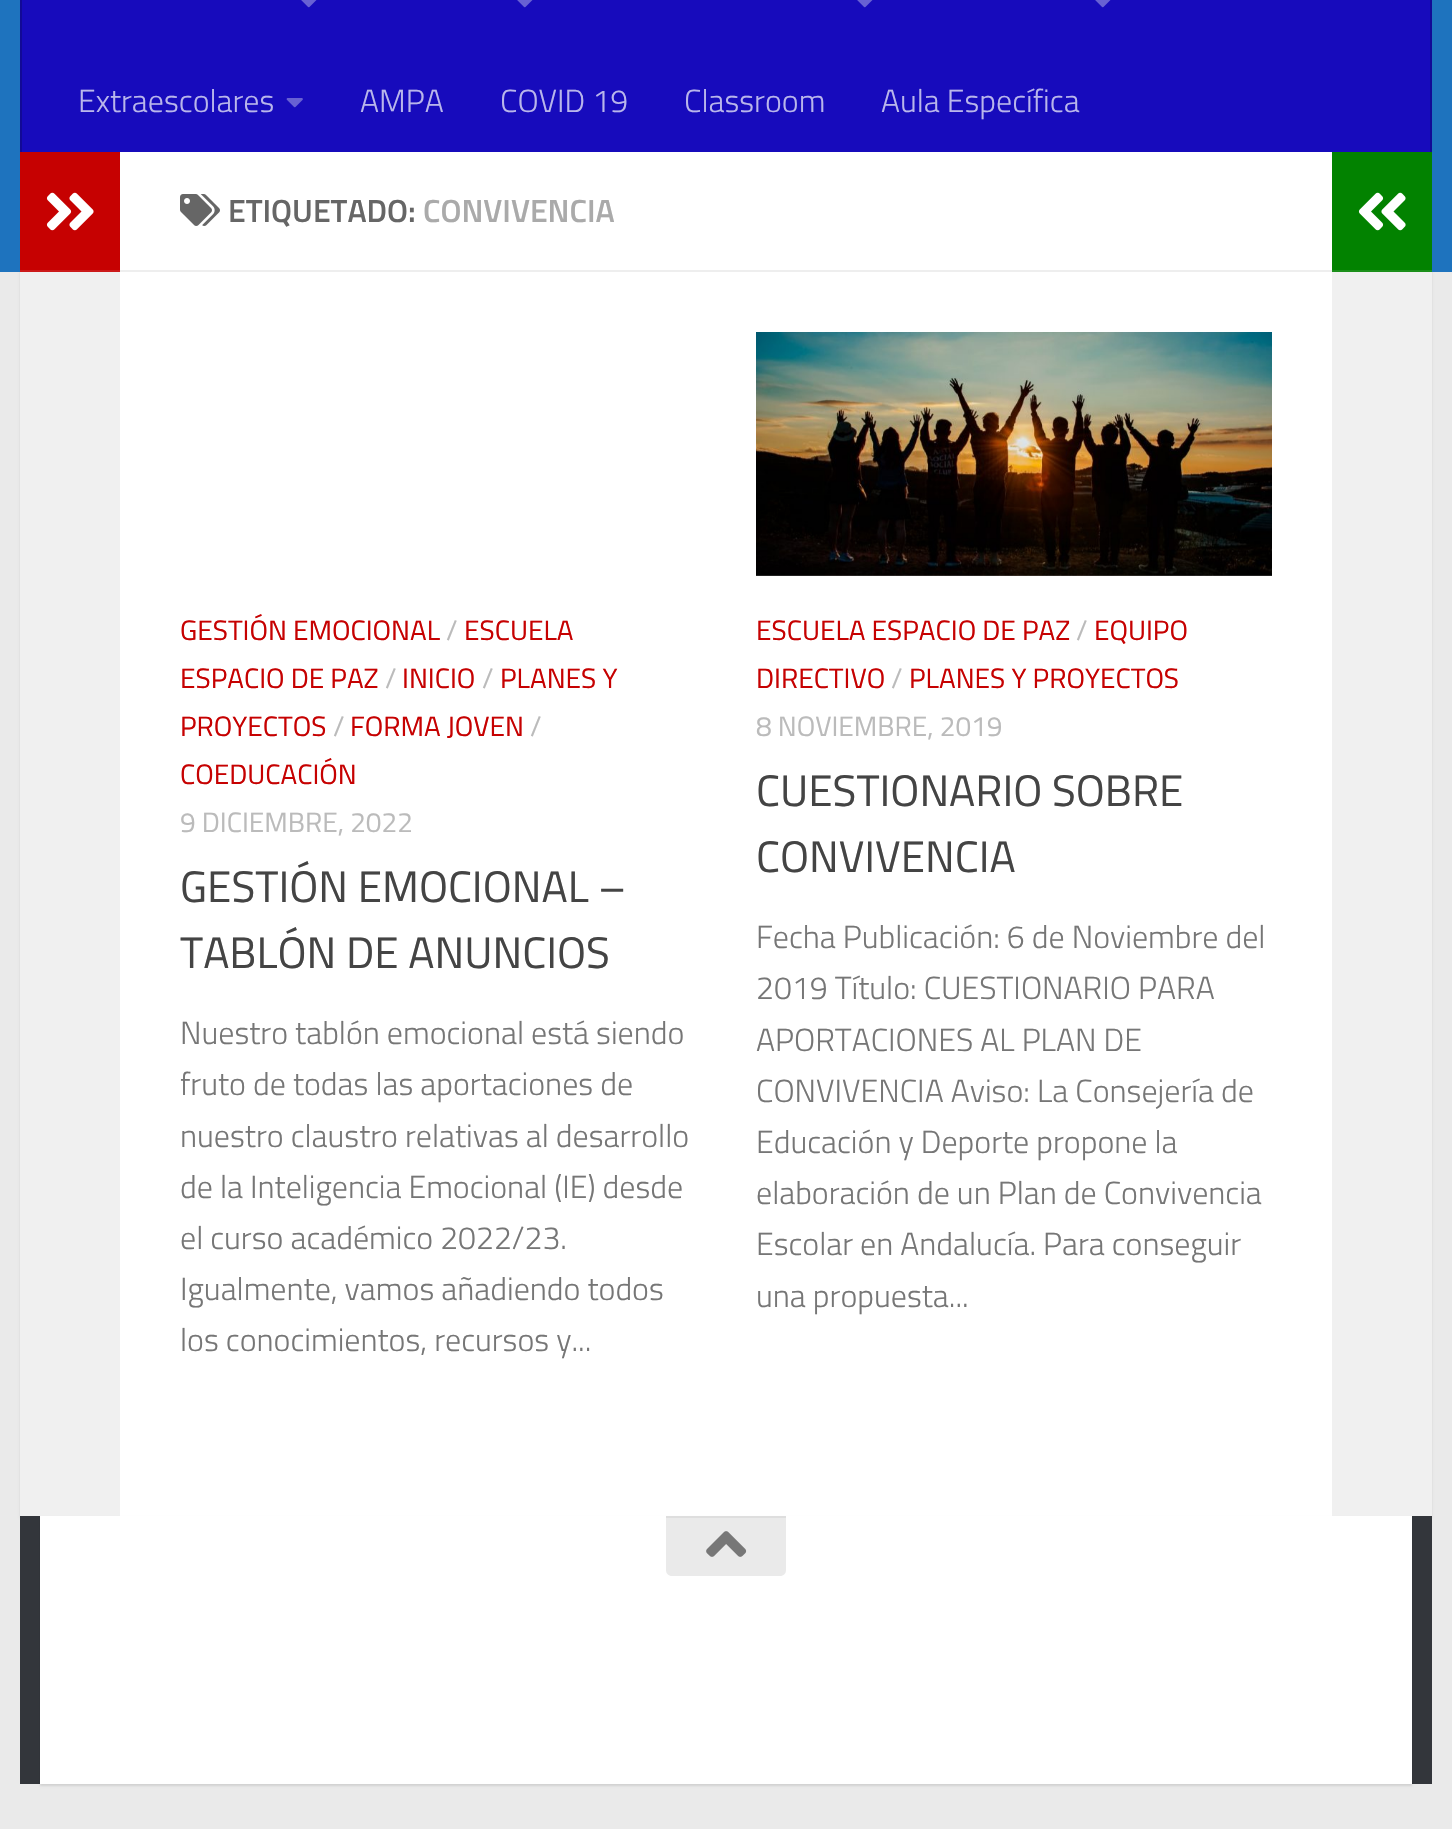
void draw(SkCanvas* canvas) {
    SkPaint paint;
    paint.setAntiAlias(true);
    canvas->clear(0xFFEAEAEA);
    paint.setColor(0x1A000000);
    paint.setMaskFilter(SkMaskFilter::MakeBlur(kNormal_SkBlurStyle, 1));
    canvas->drawRect(SkRect::MakeXYWH(20, 154, 1412, 1364), paint);
    paint.setMaskFilter(nullptr);
    paint.setColor(0xFF1E73BE);
    canvas->drawRect(SkRect::MakeXYWH(0, 0, 1452, 272), paint);
    paint.setColor(0xFF170BBC);
    canvas->drawRect(SkRect::MakeXYWH(22, 0, 1408, 152), paint);
    paint.setColor(0xFF120996);
    canvas->drawRect(SkRect::MakeXYWH(1430, 0, 2, 152), paint);
    canvas->drawRect(SkRect::MakeXYWH(20, 0, 2, 152), paint);
    canvas->drawImageRect(SkImages::DeferredFromEncodedData(SkData::MakeFromFileName("img1.png")), SkRect::MakeXYWH(301, 0, 16, 8), SkSamplingOptions());
    canvas->drawImageRect(SkImages::DeferredFromEncodedData(SkData::MakeFromFileName("img1.png")), SkRect::MakeXYWH(517, 0, 16, 8), SkSamplingOptions());
    canvas->drawImageRect(SkImages::DeferredFromEncodedData(SkData::MakeFromFileName("img1.png")), SkRect::MakeXYWH(857, 0, 16, 8), SkSamplingOptions());
    canvas->drawImageRect(SkImages::DeferredFromEncodedData(SkData::MakeFromFileName("img1.png")), SkRect::MakeXYWH(1095, 0, 16, 8), SkSamplingOptions());
    SkFont font1(fontMgr->matchFamilyStyle("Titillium", SkFontStyle(300, SkFontStyle::kNormal_Width, SkFontStyle::kUpright_Slant)), 32);
    font1.setSubpixel(true);
    paint.setColor(0xFFB9B6EB);
    canvas->drawString("Extraescolares", 78, 112, font1, paint);
    canvas->drawImageRect(SkImages::DeferredFromEncodedData(SkData::MakeFromFileName("img2.png")), SkRect::MakeXYWH(286, 98, 17, 10), SkSamplingOptions());
    canvas->drawString("AMPA", 360, 112, font1, paint);
    canvas->drawString("COVID 19", 500, 112, font1, paint);
    canvas->drawString("Classroom", 684, 112, font1, paint);
    canvas->drawString("Aula Específica", 881, 112, font1, paint);
    paint.setColor(0xFFFFFFFF);
    canvas->drawRect(SkRect::MakeXYWH(120, 152, 1212, 1364), paint);
    paint.setColor(0xFFF0F0F0);
    canvas->drawRect(SkRect::MakeXYWH(20, 272, 100, 1244), paint);
    paint.setColor(0xFFC60101);
    canvas->drawRect(SkRect::MakeXYWH(20, 152, 100, 118), paint);
    paint.setColor(0xFFCC1A1A);
    canvas->drawRect(SkRect::MakeXYWH(20, 270, 100, 2), paint);
    canvas->drawImageRect(SkImages::DeferredFromEncodedData(SkData::MakeFromFileName("img3.png")), SkRect::MakeXYWH(46, 192, 48, 39), SkSamplingOptions());
    paint.setColor(0xFFEEEEEE);
    canvas->drawRect(SkRect::MakeXYWH(120, 270, 1212, 2), paint);
    canvas->drawImageRect(SkImages::DeferredFromEncodedData(SkData::MakeFromFileName("img4.png")), SkRect::MakeXYWH(180, 194, 40, 32), SkSamplingOptions());
    SkFont font2(fontMgr->matchFamilyStyle("Titillium", SkFontStyle(600, SkFontStyle::kNormal_Width, SkFontStyle::kUpright_Slant)), 32);
    font2.setSubpixel(true);
    paint.setColor(0xFF666666);
    canvas->drawString("ETIQUETADO:", 228, 222, font2, paint);
    paint.setColor(0xFFAAAAAA);
    canvas->drawString("CONVIVENCIA", 423, 222, font2, paint);
    SkFont font3(fontMgr->matchFamilyStyle("Titillium", SkFontStyle::Normal()), 28);
    font3.setSubpixel(true);
    paint.setColor(0xFFC60101);
    canvas->drawString("GESTIÓN EMOCIONAL", 180, 640, font3, paint);
    paint.setColor(0xFFBBBBBB);
    canvas->drawString("/", 446, 640, font3, paint);
    paint.setColor(0xFFC60101);
    canvas->drawString("ESCUELA", 464, 640, font3, paint);
    canvas->drawString("ESPACIO DE PAZ", 180, 688, font3, paint);
    paint.setColor(0xFFBBBBBB);
    canvas->drawString("/", 385, 688, font3, paint);
    paint.setColor(0xFFC60101);
    canvas->drawString("INICIO", 402, 688, font3, paint);
    paint.setColor(0xFFBBBBBB);
    canvas->drawString("/", 482, 688, font3, paint);
    paint.setColor(0xFFC60101);
    canvas->drawString("PLANES Y", 500, 688, font3, paint);
    canvas->drawString("PROYECTOS", 180, 736, font3, paint);
    paint.setColor(0xFFBBBBBB);
    canvas->drawString("/", 333, 736, font3, paint);
    paint.setColor(0xFFC60101);
    canvas->drawString("FORMA JOVEN", 350, 736, font3, paint);
    paint.setColor(0xFFBBBBBB);
    canvas->drawString("/", 530, 736, font3, paint);
    paint.setColor(0xFFC60101);
    canvas->drawString("COEDUCACIÓN", 180, 784, font3, paint);
    paint.setColor(0xFFBBBBBB);
    canvas->drawString("9 DICIEMBRE, 2022", 180, 832, font3, paint);
    SkFont font4(fontMgr->matchFamilyStyle("Titillium", SkFontStyle::Normal()), 44);
    font4.setSubpixel(true);
    paint.setColor(0xFF444444);
    canvas->drawString("GESTIÓN EMOCIONAL –", 180, 902, font4, paint);
    canvas->drawString("TABLÓN DE ANUNCIOS", 180, 968, font4, paint);
    paint.setColor(0xFF767676);
    canvas->drawString("Nuestro tablón emocional está siendo", 180, 1044, font1, paint);
    canvas->drawString("fruto de todas las aportaciones de", 180, 1095, font1, paint);
    canvas->drawString("nuestro claustro relativas al desarrollo", 180, 1147, font1, paint);
    canvas->drawString("de la Inteligencia Emocional (IE) desde", 180, 1198, font1, paint);
    canvas->drawString("el curso académico 2022/23.", 180, 1249, font1, paint);
    canvas->drawString("Igualmente, vamos añadiendo todos", 180, 1300, font1, paint);
    canvas->drawString("los conocimientos, recursos y...", 180, 1351, font1, paint);
    canvas->drawImageRect(SkImages::DeferredFromEncodedData(SkData::MakeFromFileName("img5.png")), SkRect::MakeXYWH(756, 332, 516, 244), SkSamplingOptions());
    paint.setColor(0xFFC60101);
    canvas->drawString("ESCUELA ESPACIO DE PAZ", 756, 640, font3, paint);
    paint.setColor(0xFFBBBBBB);
    canvas->drawString("/", 1076, 640, font3, paint);
    paint.setColor(0xFFC60101);
    canvas->drawString("EQUIPO", 1094, 640, font3, paint);
    canvas->drawString("DIRECTIVO", 756, 688, font3, paint);
    paint.setColor(0xFFBBBBBB);
    canvas->drawString("/", 891, 688, font3, paint);
    paint.setColor(0xFFC60101);
    canvas->drawString("PLANES Y PROYECTOS", 909, 688, font3, paint);
    paint.setColor(0xFFBBBBBB);
    canvas->drawString("8 NOVIEMBRE, 2019", 756, 736, font3, paint);
    paint.setColor(0xFF444444);
    canvas->drawString("CUESTIONARIO SOBRE", 756, 806, font4, paint);
    canvas->drawString("CONVIVENCIA", 756, 872, font4, paint);
    paint.setColor(0xFF767676);
    canvas->drawString("Fecha Publicación: 6 de Noviembre del", 756, 948, font1, paint);
    canvas->drawString("2019 Título: CUESTIONARIO PARA", 756, 999, font1, paint);
    canvas->drawString("APORTACIONES AL PLAN DE", 756, 1051, font1, paint);
    canvas->drawString("CONVIVENCIA Aviso: La Consejería de", 756, 1102, font1, paint);
    canvas->drawString("Educación y Deporte propone la", 756, 1153, font1, paint);
    canvas->drawString("elaboración de un Plan de Convivencia", 756, 1204, font1, paint);
    canvas->drawString("Escolar en Andalucía. Para conseguir", 756, 1255, font1, paint);
    canvas->drawString("una propuesta...", 756, 1307, font1, paint);
    paint.setColor(0xFF028200);
    canvas->drawRect(SkRect::MakeXYWH(1332, 152, 100, 118), paint);
    paint.setColor(0xFF1B8F1A);
    canvas->drawRect(SkRect::MakeXYWH(1332, 270, 100, 2), paint);
    canvas->drawImageRect(SkImages::DeferredFromEncodedData(SkData::MakeFromFileName("img6.png")), SkRect::MakeXYWH(1358, 192, 48, 39), SkSamplingOptions());
    paint.setColor(0xFFF0F0F0);
    canvas->drawRect(SkRect::MakeXYWH(1332, 272, 100, 1244), paint);
    paint.setColor(0xFF33363B);
    canvas->drawRect(SkRect::MakeXYWH(20, 1516, 1412, 268), paint);
    paint.setColor(0x1A000000);
    paint.setMaskFilter(SkMaskFilter::MakeBlur(kNormal_SkBlurStyle, 1));
    canvas->drawRect(SkRect::MakeXYWH(40, 1518, 1372, 268), paint);
    paint.setMaskFilter(nullptr);
    paint.setColor(0xFFFFFFFF);
    canvas->drawRect(SkRect::MakeXYWH(40, 1516, 1372, 268), paint);
    paint.setColor(0xFFEAEAEA);
    canvas->drawPath(SkPathBuilder().moveTo(666, 1516).lineTo(786, 1516).lineTo(786, 1570).cubicTo(786, 1573.5f, 783.5f, 1576, 780, 1576).lineTo(672, 1576).cubicTo(668.5f, 1576, 666, 1573.5f, 666, 1570).close().detach(), paint);
    paint.setColor(0xFFDEDEDE);
    canvas->drawRect(SkRect::MakeXYWH(666, 1516, 120, 2), paint);
    canvas->drawImageRect(SkImages::DeferredFromEncodedData(SkData::MakeFromFileName("img7.png")), SkRect::MakeXYWH(706, 1531, 41, 26), SkSamplingOptions());
}
